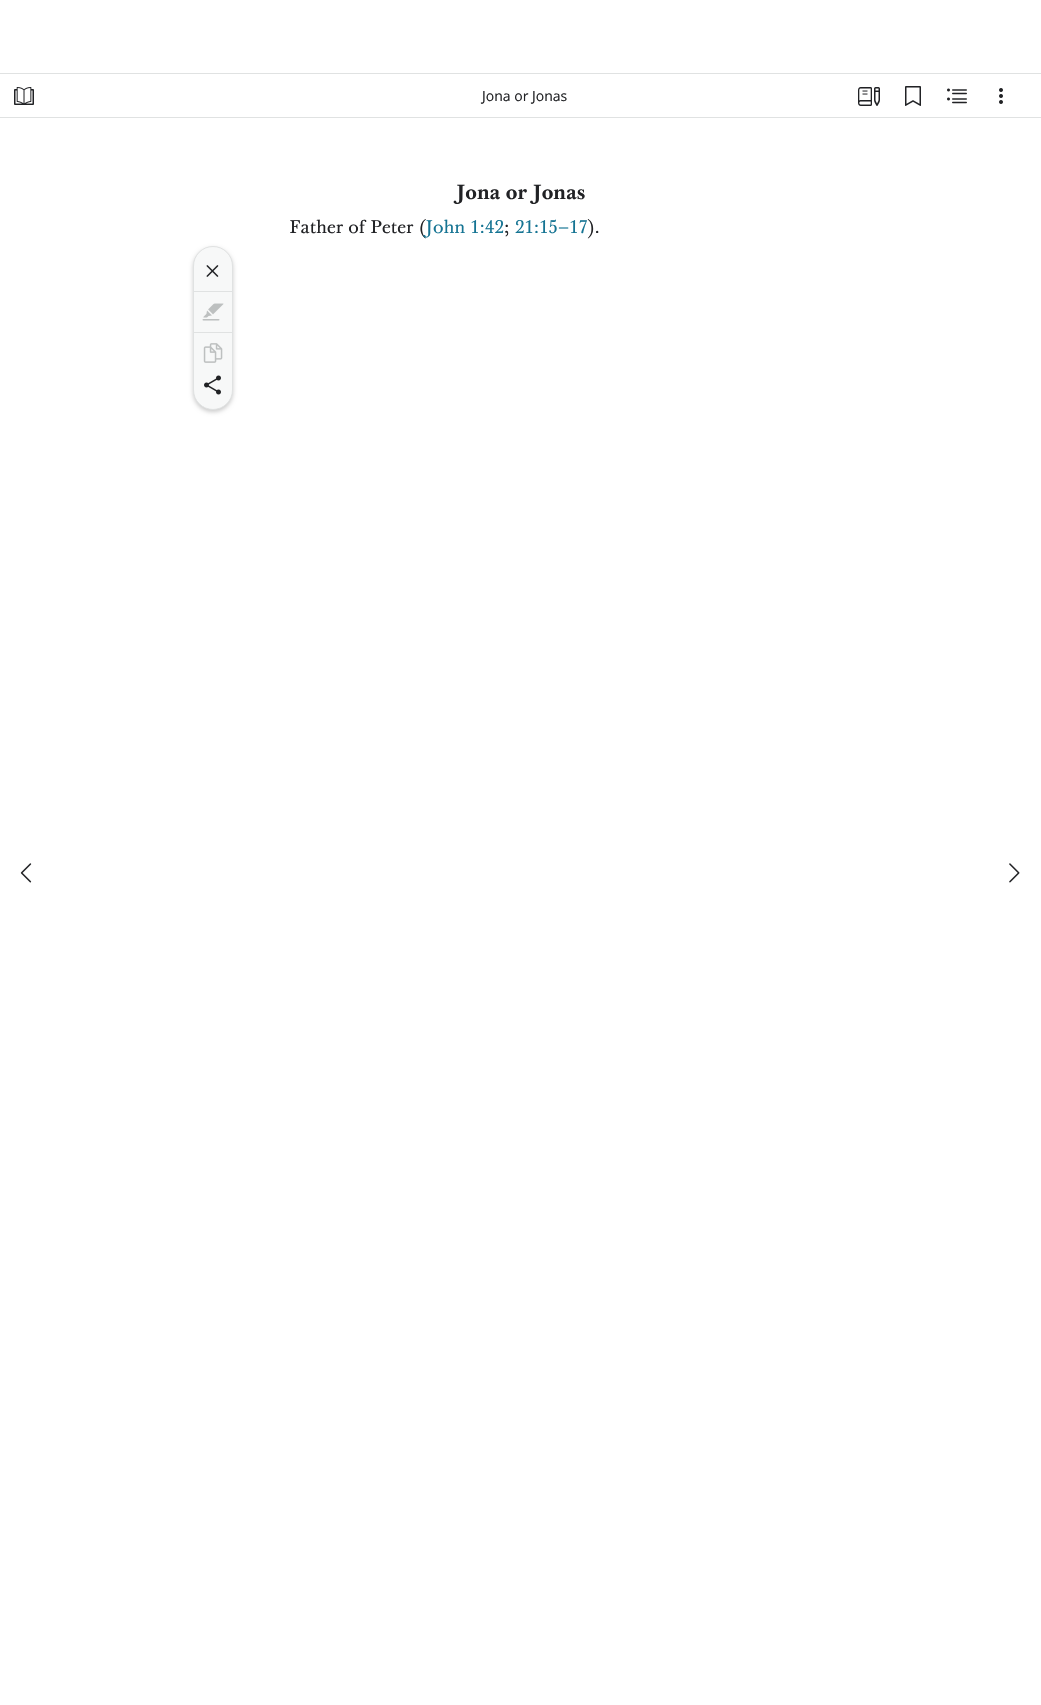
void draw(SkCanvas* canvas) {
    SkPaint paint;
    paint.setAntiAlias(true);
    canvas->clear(0xFFFFFFFF);
    paint.setColor(0xFFE0E2E2);
    canvas->drawRect(SkRect::MakeXYWH(0, 73, 1041, 1), paint);
    canvas->drawRect(SkRect::MakeXYWH(0, 117, 1041, 1), paint);
    canvas->drawImageRect(SkImages::DeferredFromEncodedData(SkData::MakeFromFileName("img1.png")), SkRect::MakeXYWH(14, 87, 20, 18), SkSamplingOptions());
    SkFont font1(fontMgr->matchFamilyStyle("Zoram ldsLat", SkFontStyle::Normal()), 14);
    font1.setSubpixel(true);
    paint.setColor(0xFF212225);
    canvas->drawString("Jona or Jonas", 482, 101, font1, paint);
    canvas->drawImageRect(SkImages::DeferredFromEncodedData(SkData::MakeFromFileName("img2.png")), SkRect::MakeXYWH(858, 87, 22, 19), SkSamplingOptions());
    canvas->drawImageRect(SkImages::DeferredFromEncodedData(SkData::MakeFromFileName("img3.png")), SkRect::MakeXYWH(905, 86, 16, 20), SkSamplingOptions());
    canvas->drawImageRect(SkImages::DeferredFromEncodedData(SkData::MakeFromFileName("img4.png")), SkRect::MakeXYWH(947, 88, 20, 16), SkSamplingOptions());
    canvas->drawImageRect(SkImages::DeferredFromEncodedData(SkData::MakeFromFileName("img5.png")), SkRect::MakeXYWH(999, 88, 4, 16), SkSamplingOptions());
    SkFont font2(fontMgr->matchFamilyStyle("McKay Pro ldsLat", SkFontStyle::Bold()), 20);
    font2.setSubpixel(true);
    canvas->drawString("Jona or Jonas", 456, 199, font2, paint);
    SkFont font3(fontMgr->matchFamilyStyle("McKay Pro ldsLat", SkFontStyle::Normal()), 18);
    font3.setSubpixel(true);
    canvas->drawString("Father of Peter (", 289, 233, font3, paint);
    paint.setColor(0xFF157493);
    canvas->drawString("John 1:42", 425, 233, font3, paint);
    paint.setColor(0xFF212225);
    canvas->drawString(";", 504, 233, font3, paint);
    paint.setColor(0xFF157493);
    canvas->drawString("21:15–17", 515, 233, font3, paint);
    paint.setColor(0xFF212225);
    canvas->drawString(").", 588, 233, font3, paint);
    paint.setColor(0x33000000);
    paint.setMaskFilter(SkMaskFilter::MakeBlur(kNormal_SkBlurStyle, 2));
    canvas->drawRoundRect(SkRect::MakeXYWH(193, 248, 40, 164), 20, 20, paint);
    paint.setMaskFilter(nullptr);
    paint.setColor(0xFFF7F8F8);
    canvas->drawRoundRect(SkRect::MakeXYWH(193.5f, 246.5f, 39, 163), 19.5f, 19.5f, paint);
    paint.setStyle(SkPaint::kStroke_Style);
    paint.setStrokeWidth(1);
    paint.setColor(0xFFE0E2E2);
    canvas->drawRoundRect(SkRect::MakeXYWH(193.5f, 246.5f, 39, 163), 19.5f, 19.5f, paint);
    canvas->drawImageRect(SkImages::DeferredFromEncodedData(SkData::MakeFromFileName("img6.png")), SkRect::MakeXYWH(206, 265, 13, 12), SkSamplingOptions());
    paint.setStyle(SkPaint::kFill_Style);
    canvas->drawRect(SkRect::MakeXYWH(194, 291, 38, 1), paint);
    canvas->drawImageRect(SkImages::DeferredFromEncodedData(SkData::MakeFromFileName("img7.png")), SkRect::MakeXYWH(202, 303, 22, 18), SkSamplingOptions());
    canvas->drawRect(SkRect::MakeXYWH(194, 332, 38, 1), paint);
    canvas->drawImageRect(SkImages::DeferredFromEncodedData(SkData::MakeFromFileName("img8.png")), SkRect::MakeXYWH(203, 343, 20, 20), SkSamplingOptions());
    canvas->drawImageRect(SkImages::DeferredFromEncodedData(SkData::MakeFromFileName("img9.png")), SkRect::MakeXYWH(204, 375, 17, 20), SkSamplingOptions());
    canvas->drawImageRect(SkImages::DeferredFromEncodedData(SkData::MakeFromFileName("img10.png")), SkRect::MakeXYWH(20, 863, 12, 20), SkSamplingOptions());
    canvas->drawImageRect(SkImages::DeferredFromEncodedData(SkData::MakeFromFileName("img11.png")), SkRect::MakeXYWH(1009, 863, 11, 20), SkSamplingOptions());
}
